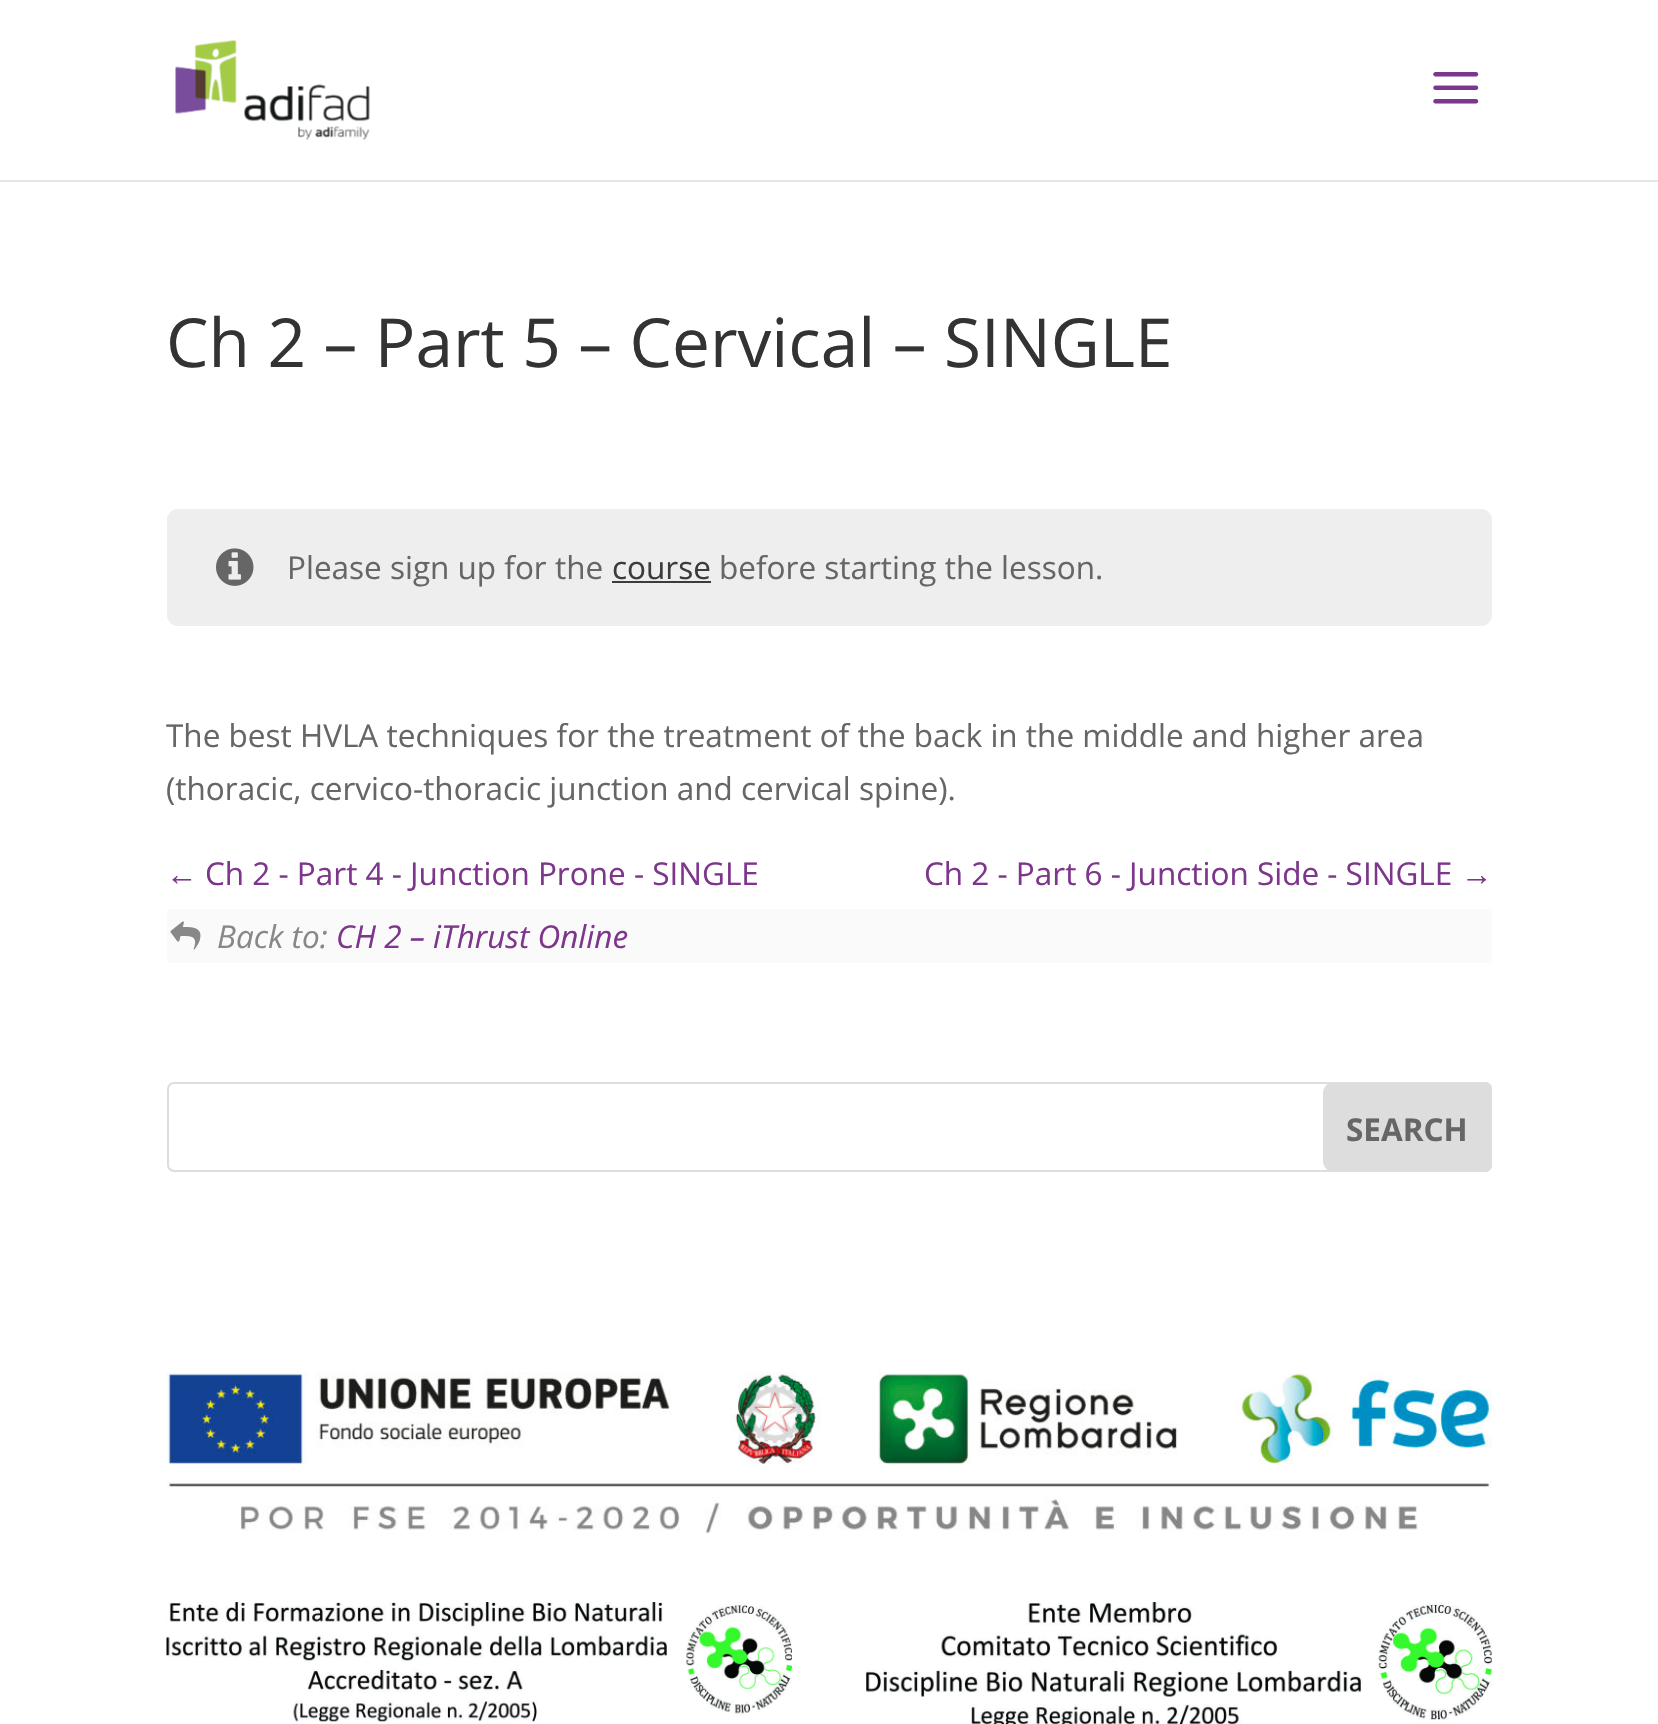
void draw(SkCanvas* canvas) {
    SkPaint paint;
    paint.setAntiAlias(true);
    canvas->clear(0xFFFFFFFF);
    paint.setColor(0xFFE6E6E6);
    canvas->drawRect(SkRect::MakeXYWH(0, 180, 1658, 2), paint);
    canvas->drawImageRect(SkImages::DeferredFromEncodedData(SkData::MakeFromFileName("img1.png")), SkRect::MakeXYWH(175, 40, 195, 100), SkSamplingOptions());
    canvas->drawImageRect(SkImages::DeferredFromEncodedData(SkData::MakeFromFileName("img2.png")), SkRect::MakeXYWH(1433, 72, 46, 32), SkSamplingOptions());
    SkFont font1(fontMgr->matchFamilyStyle("Open Sans", SkFontStyle::Normal()), 67.5f);
    font1.setSubpixel(true);
    paint.setColor(0xFF333333);
    canvas->drawString("Ch 2 – Part 5 – Cervical – SINGLE", 166, 367, font1, paint);
    paint.setColor(0xFFEEEEEE);
    canvas->drawRoundRect(SkRect::MakeXYWH(167, 509, 1325, 117), 11, 11, paint);
    canvas->drawImageRect(SkImages::DeferredFromEncodedData(SkData::MakeFromFileName("img3.png")), SkRect::MakeXYWH(216, 548, 38, 38), SkSamplingOptions());
    SkFont font2(fontMgr->matchFamilyStyle("Open Sans", SkFontStyle::Normal()), 31.5f);
    font2.setSubpixel(true);
    paint.setColor(0xFF666666);
    canvas->drawString("Please sign up for the", 287, 579, font2, paint);
    paint.setColor(0xFF3C3C3C);
    canvas->drawString("course", 612, 579, font2, paint);
    canvas->drawRect(SkRect::MakeXYWH(612, 581, 99, 2), paint);
    paint.setColor(0xFF666666);
    canvas->drawString("before starting the lesson.", 719, 579, font2, paint);
    canvas->drawString("The best HVLA techniques for the treatment of the back in the middle and higher area", 166, 747, font2, paint);
    canvas->drawString("(thoracic, cervico-thoracic junction and cervical spine).", 166, 800, font2, paint);
    SkFont font3(fontMgr->matchFamilyStyle("Liberation Sans", SkFontStyle::Normal()), 31.5f);
    font3.setSubpixel(true);
    paint.setColor(0xFF7D368B);
    canvas->drawString("←", 166, 885, font3, paint);
    canvas->drawString("Ch 2 - Part 4 - Junction Prone - SINGLE", 205, 885, font2, paint);
    canvas->drawString("Ch 2 - Part 6 - Junction Side - SINGLE", 924, 885, font2, paint);
    canvas->drawString("→", 1461, 885, font3, paint);
    paint.setColor(0xFFFAFAFA);
    canvas->drawRect(SkRect::MakeXYWH(167, 909, 1325, 54), paint);
    canvas->drawImageRect(SkImages::DeferredFromEncodedData(SkData::MakeFromFileName("img4.png")), SkRect::MakeXYWH(170, 921, 31, 29), SkSamplingOptions());
    SkFont font4(fontMgr->matchFamilyStyle("Open Sans", SkFontStyle::Italic()), 31.5f);
    font4.setSubpixel(true);
    paint.setColor(0xFF888888);
    canvas->drawString("Back to:", 217, 948, font4, paint);
    paint.setColor(0xFF7D368B);
    canvas->drawString("CH 2 – iThrust Online", 336, 948, font4, paint);
    paint.setStyle(SkPaint::kStroke_Style);
    paint.setStrokeWidth(2);
    paint.setColor(0xFFDDDDDD);
    canvas->drawRoundRect(SkRect::MakeXYWH(168, 1083, 1323, 88), 6, 6, paint);
    paint.setStyle(SkPaint::kFill_Style);
    canvas->drawPath(SkPathBuilder().moveTo(1334, 1083).lineTo(1485, 1083).cubicTo(1488.5f, 1083, 1491, 1085.5f, 1491, 1089).lineTo(1491, 1165).cubicTo(1491, 1168.5f, 1488.5f, 1171, 1485, 1171).lineTo(1334, 1171).cubicTo(1328.5f, 1171, 1324, 1166.5f, 1324, 1161).lineTo(1324, 1093).cubicTo(1324, 1087.5f, 1328.5f, 1083, 1334, 1083).close().detach(), paint);
    paint.setStyle(SkPaint::kStroke_Style);
    canvas->drawPath(SkPathBuilder().moveTo(1334, 1083).lineTo(1485, 1083).cubicTo(1488.5f, 1083, 1491, 1085.5f, 1491, 1089).lineTo(1491, 1165).cubicTo(1491, 1168.5f, 1488.5f, 1171, 1485, 1171).lineTo(1334, 1171).cubicTo(1328.5f, 1171, 1324, 1166.5f, 1324, 1161).lineTo(1324, 1093).cubicTo(1324, 1087.5f, 1328.5f, 1083, 1334, 1083).close().detach(), paint);
    SkFont font5(fontMgr->matchFamilyStyle("Open Sans", SkFontStyle::Bold()), 31.5f);
    font5.setSubpixel(true);
    paint.setStyle(SkPaint::kFill_Style);
    paint.setColor(0xFF666666);
    canvas->drawString("SEARCH", 1346, 1141, font5, paint);
    canvas->drawImageRect(SkImages::DeferredFromEncodedData(SkData::MakeFromFileName("img5.png")), SkRect::MakeXYWH(166, 1372, 1326, 162), SkSamplingOptions());
    canvas->drawImageRect(SkImages::DeferredFromEncodedData(SkData::MakeFromFileName("img6.png")), SkRect::MakeXYWH(166, 1602, 626, 120), SkSamplingOptions());
    canvas->drawImageRect(SkImages::DeferredFromEncodedData(SkData::MakeFromFileName("img7.png")), SkRect::MakeXYWH(866, 1602, 626, 122), SkSamplingOptions());
}
